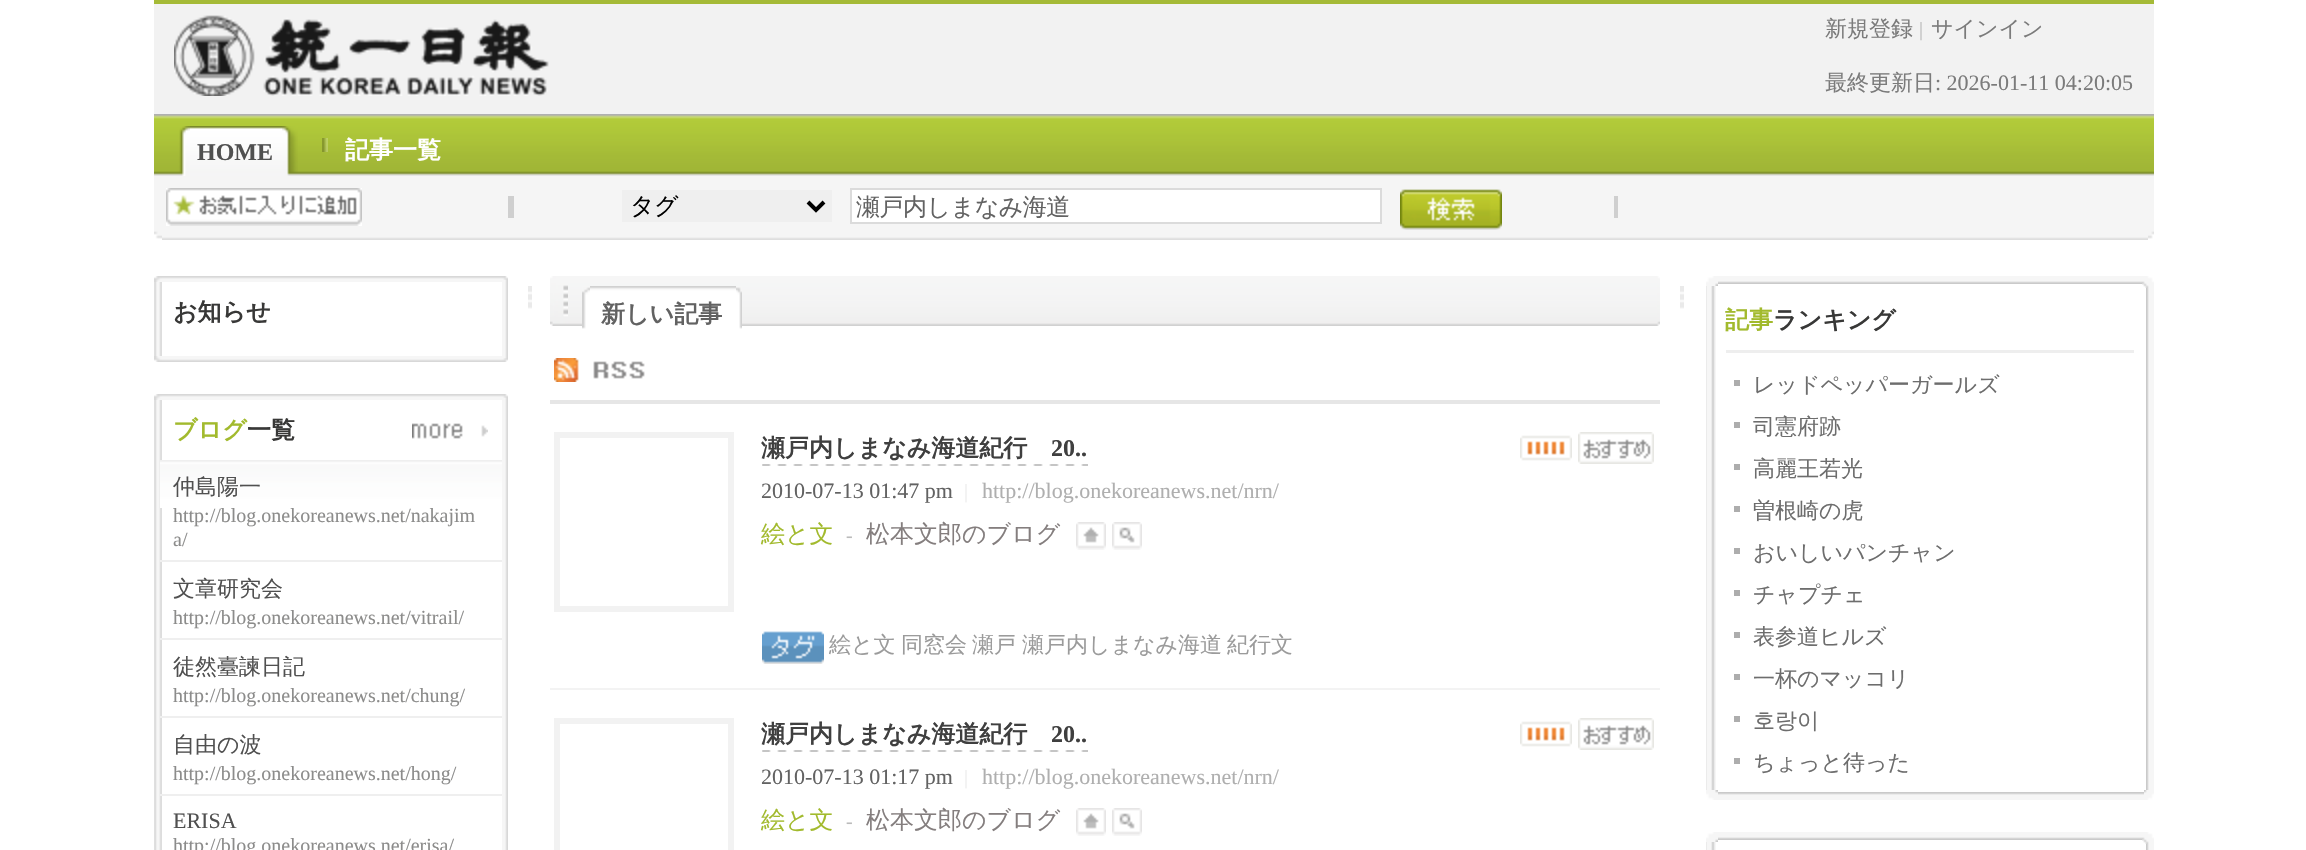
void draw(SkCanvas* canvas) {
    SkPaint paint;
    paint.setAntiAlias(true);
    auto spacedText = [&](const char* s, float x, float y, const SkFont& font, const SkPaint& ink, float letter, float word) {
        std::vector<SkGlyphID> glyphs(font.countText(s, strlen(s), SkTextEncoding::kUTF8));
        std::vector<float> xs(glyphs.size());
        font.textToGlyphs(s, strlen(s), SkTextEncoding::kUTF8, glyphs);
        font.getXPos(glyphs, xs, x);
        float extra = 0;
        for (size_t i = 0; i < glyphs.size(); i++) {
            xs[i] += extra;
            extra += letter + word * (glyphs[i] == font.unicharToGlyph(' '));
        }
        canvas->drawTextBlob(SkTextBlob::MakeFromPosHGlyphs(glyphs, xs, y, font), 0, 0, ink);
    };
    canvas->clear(0xFFFFFFFF);
    paint.setColor(0xFFF2F2F2);
    canvas->drawRect(SkRect::MakeXYWH(154, 4, 2000, 110), paint);
    paint.setColor(0xFFA5BA37);
    canvas->drawRect(SkRect::MakeXYWH(154, 0, 2000, 4), paint);
    canvas->drawImageRect(SkImages::DeferredFromEncodedData(SkData::MakeFromFileName("img1.png")), SkRect::MakeXYWH(174, 15, 375, 81), SkSamplingOptions());
    SkFont font1(fontMgr->matchFamilyStyle("WenQuanYi Zen Hei", SkFontStyle(500, SkFontStyle::kNormal_Width, SkFontStyle::kUpright_Slant)), 22);
    font1.setSubpixel(true);
    paint.setColor(0xFF7B7B7B);
    canvas->drawString("新規登録", 1825, 36, font1, paint);
    SkFont font2(fontMgr->matchFamilyStyle("Liberation Serif", SkFontStyle::Normal()), 20);
    font2.setSubpixel(true);
    paint.setColor(0xFFBBBBBB);
    canvas->drawString("|", 1919, 36, font2, paint);
    paint.setColor(0xFF7B7B7B);
    canvas->drawString("サインイン", 1931, 36, font1, paint);
    canvas->drawString("最終更新日", 1825, 90, font1, paint);
    SkFont font3(fontMgr->matchFamilyStyle("Liberation Serif", SkFontStyle::Normal()), 22);
    font3.setSubpixel(true);
    canvas->drawString(": 2026-01-11 04:20:05", 1935, 90, font3, paint);
    canvas->drawImageRect(SkImages::DeferredFromEncodedData(SkData::MakeFromFileName("img2.png")), SkRect::MakeXYWH(154, 114, 2000, 62), SkSamplingOptions());
    canvas->drawImageRect(SkImages::DeferredFromEncodedData(SkData::MakeFromFileName("img3.png")), SkRect::MakeXYWH(190, 126, 92, 50), SkSamplingOptions());
    canvas->drawImageRect(SkImages::DeferredFromEncodedData(SkData::MakeFromFileName("img4.png")), SkRect::MakeXYWH(178, 126, 12, 50), SkSamplingOptions());
    canvas->drawImageRect(SkImages::DeferredFromEncodedData(SkData::MakeFromFileName("img5.png")), SkRect::MakeXYWH(282, 126, 16, 50), SkSamplingOptions());
    SkFont font4(fontMgr->matchFamilyStyle("Liberation Serif", SkFontStyle::Bold()), 24);
    font4.setSubpixel(true);
    paint.setColor(0xFF505050);
    canvas->drawString("HOME", 197, 160, font4, paint);
    canvas->drawImageRect(SkImages::DeferredFromEncodedData(SkData::MakeFromFileName("img6.png")), SkRect::MakeXYWH(322, 138, 6, 14), SkSamplingOptions());
    SkFont font5(fontMgr->matchFamilyStyle("WenQuanYi Zen Hei", SkFontStyle::Bold()), 24);
    font5.setSubpixel(true);
    paint.setColor(0xFFFFFFFF);
    canvas->drawString("記事一覧", 345, 158, font5, paint);
    canvas->drawImageRect(SkImages::DeferredFromEncodedData(SkData::MakeFromFileName("img7.png")), SkRect::MakeXYWH(154, 176, 2000, 64), SkSamplingOptions());
    canvas->drawImageRect(SkImages::DeferredFromEncodedData(SkData::MakeFromFileName("img8.png")), SkRect::MakeXYWH(154, 231, 8, 9), SkSamplingOptions());
    canvas->drawImageRect(SkImages::DeferredFromEncodedData(SkData::MakeFromFileName("img9.png")), SkRect::MakeXYWH(2148, 231, 6, 9), SkSamplingOptions());
    canvas->drawImageRect(SkImages::DeferredFromEncodedData(SkData::MakeFromFileName("img10.png")), SkRect::MakeXYWH(166, 188, 196, 38), SkSamplingOptions());
    paint.setColor(0xFFCFCFCF);
    canvas->drawRect(SkRect::MakeXYWH(508, 196, 6, 22), paint);
    canvas->drawRect(SkRect::MakeXYWH(1614, 196, 4, 22), paint);
    paint.setColor(0xFFEFEFEF);
    canvas->drawRect(SkRect::MakeXYWH(622, 190, 210, 32), paint);
    paint.setStyle(SkPaint::kStroke_Style);
    paint.setStrokeWidth(4);
    paint.setColor(0xFF000000);
    canvas->drawPath(SkPathBuilder().moveTo(808, 202).lineTo(816, 210).lineTo(824, 202).detach(), paint);
    SkFont font6(fontMgr->matchFamilyStyle("WenQuanYi Zen Hei", SkFontStyle(500, SkFontStyle::kNormal_Width, SkFontStyle::kUpright_Slant)), 24);
    font6.setSubpixel(true);
    paint.setStyle(SkPaint::kFill_Style);
    spacedText("タグ", 630, 214, font6, paint, -0.5f, 0);
    paint.setColor(0xFFFFFFFF);
    canvas->drawRect(SkRect::MakeXYWH(851, 189, 530, 34), paint);
    paint.setStyle(SkPaint::kStroke_Style);
    paint.setStrokeWidth(2);
    paint.setColor(0xFFDBDBDB);
    canvas->drawRect(SkRect::MakeXYWH(851, 189, 530, 34), paint);
    paint.setStyle(SkPaint::kFill_Style);
    paint.setColor(0xFF626262);
    spacedText("瀬戸内しまなみ海道", 856, 215, font6, paint, -0.5f, 0);
    canvas->drawImageRect(SkImages::DeferredFromEncodedData(SkData::MakeFromFileName("img11.png")), SkRect::MakeXYWH(1400, 189, 102, 41), SkSamplingOptions());
    canvas->drawImageRect(SkImages::DeferredFromEncodedData(SkData::MakeFromFileName("img12.png")), SkRect::MakeXYWH(528, 286, 4, 23), SkSamplingOptions());
    canvas->drawImageRect(SkImages::DeferredFromEncodedData(SkData::MakeFromFileName("img12.png")), SkRect::MakeXYWH(1680, 286, 4, 23), SkSamplingOptions());
    canvas->drawImageRect(SkImages::DeferredFromEncodedData(SkData::MakeFromFileName("img13.png")), SkRect::MakeXYWH(162, 276, 340, 6), SkSamplingOptions());
    canvas->drawImageRect(SkImages::DeferredFromEncodedData(SkData::MakeFromFileName("img14.png")), SkRect::MakeXYWH(162, 356, 340, 6), SkSamplingOptions());
    canvas->drawImageRect(SkImages::DeferredFromEncodedData(SkData::MakeFromFileName("img15.png")), SkRect::MakeXYWH(154, 282, 8, 74), SkSamplingOptions());
    canvas->drawImageRect(SkImages::DeferredFromEncodedData(SkData::MakeFromFileName("img16.png")), SkRect::MakeXYWH(502, 280, 6, 78), SkSamplingOptions());
    canvas->drawImageRect(SkImages::DeferredFromEncodedData(SkData::MakeFromFileName("img17.png")), SkRect::MakeXYWH(154, 276, 8, 6), SkSamplingOptions());
    canvas->drawImageRect(SkImages::DeferredFromEncodedData(SkData::MakeFromFileName("img18.png")), SkRect::MakeXYWH(502, 276, 6, 4), SkSamplingOptions());
    canvas->drawImageRect(SkImages::DeferredFromEncodedData(SkData::MakeFromFileName("img19.png")), SkRect::MakeXYWH(154, 356, 8, 6), SkSamplingOptions());
    canvas->drawImageRect(SkImages::DeferredFromEncodedData(SkData::MakeFromFileName("img20.png")), SkRect::MakeXYWH(502, 358, 6, 4), SkSamplingOptions());
    paint.setColor(0xFF383837);
    canvas->drawString("お知らせ", 173, 320, font5, paint);
    canvas->drawImageRect(SkImages::DeferredFromEncodedData(SkData::MakeFromFileName("img13.png")), SkRect::MakeXYWH(162, 394, 340, 6), SkSamplingOptions());
    canvas->drawImageRect(SkImages::DeferredFromEncodedData(SkData::MakeFromFileName("img21.png")), SkRect::MakeXYWH(154, 400, 8, 450), SkSamplingOptions());
    canvas->drawImageRect(SkImages::DeferredFromEncodedData(SkData::MakeFromFileName("img22.png")), SkRect::MakeXYWH(502, 398, 6, 452), SkSamplingOptions());
    canvas->drawImageRect(SkImages::DeferredFromEncodedData(SkData::MakeFromFileName("img17.png")), SkRect::MakeXYWH(154, 394, 8, 6), SkSamplingOptions());
    canvas->drawImageRect(SkImages::DeferredFromEncodedData(SkData::MakeFromFileName("img18.png")), SkRect::MakeXYWH(502, 394, 6, 4), SkSamplingOptions());
    paint.setColor(0xFFA2BA2D);
    canvas->drawString("ブログ", 173, 438, font5, paint);
    paint.setColor(0xFF383837);
    canvas->drawString("一覧", 247, 438, font5, paint);
    canvas->drawImageRect(SkImages::DeferredFromEncodedData(SkData::MakeFromFileName("img23.png")), SkRect::MakeXYWH(412, 423, 76, 16), SkSamplingOptions());
    canvas->drawImageRect(SkImages::DeferredFromEncodedData(SkData::MakeFromFileName("img24.png")), SkRect::MakeXYWH(160, 460, 342, 48), SkSamplingOptions());
    paint.setColor(0xFFEFEFEF);
    canvas->drawRect(SkRect::MakeXYWH(160, 560, 342, 2), paint);
    paint.setColor(0xFF505050);
    canvas->drawString("仲島陽一", 173, 494, font1, paint);
    paint.setColor(0xFF8C8C8B);
    canvas->drawString("http://blog.onekoreanews.net/nakajim", 173, 522, font2, paint);
    canvas->drawString("a/", 173, 546, font2, paint);
    paint.setColor(0xFFEFEFEF);
    canvas->drawRect(SkRect::MakeXYWH(160, 638, 342, 2), paint);
    paint.setColor(0xFF505050);
    canvas->drawString("文章研究会", 173, 596, font1, paint);
    paint.setColor(0xFF8C8C8B);
    canvas->drawString("http://blog.onekoreanews.net/vitrail/", 173, 624, font2, paint);
    paint.setColor(0xFFEFEFEF);
    canvas->drawRect(SkRect::MakeXYWH(160, 716, 342, 2), paint);
    paint.setColor(0xFF505050);
    canvas->drawString("徒然臺諫日記", 173, 674, font1, paint);
    paint.setColor(0xFF8C8C8B);
    canvas->drawString("http://blog.onekoreanews.net/chung/", 173, 702, font2, paint);
    paint.setColor(0xFFEFEFEF);
    canvas->drawRect(SkRect::MakeXYWH(160, 794, 342, 2), paint);
    paint.setColor(0xFF505050);
    canvas->drawString("自由の波", 173, 752, font1, paint);
    paint.setColor(0xFF8C8C8B);
    canvas->drawString("http://blog.onekoreanews.net/hong/", 173, 780, font2, paint);
    paint.setColor(0xFF505050);
    canvas->drawString("ERISA", 173, 828, font3, paint);
    paint.setColor(0xFF8C8C8B);
    canvas->drawString("http://blog.onekoreanews.net/erisa/", 173, 852, font2, paint);
    canvas->drawImageRect(SkImages::DeferredFromEncodedData(SkData::MakeFromFileName("img25.png")), SkRect::MakeXYWH(568, 276, 1089, 50), SkSamplingOptions());
    canvas->drawImageRect(SkImages::DeferredFromEncodedData(SkData::MakeFromFileName("img26.png")), SkRect::MakeXYWH(550, 276, 18, 50), SkSamplingOptions());
    canvas->drawImageRect(SkImages::DeferredFromEncodedData(SkData::MakeFromFileName("img27.png")), SkRect::MakeXYWH(1657, 276, 3, 50), SkSamplingOptions());
    canvas->drawImageRect(SkImages::DeferredFromEncodedData(SkData::MakeFromFileName("img28.png")), SkRect::MakeXYWH(590, 286, 146, 40), SkSamplingOptions());
    canvas->drawImageRect(SkImages::DeferredFromEncodedData(SkData::MakeFromFileName("img29.png")), SkRect::MakeXYWH(582, 286, 8, 43), SkSamplingOptions());
    canvas->drawImageRect(SkImages::DeferredFromEncodedData(SkData::MakeFromFileName("img30.png")), SkRect::MakeXYWH(736, 286, 6, 43), SkSamplingOptions());
    paint.setColor(0xFF626262);
    canvas->drawString("新しい記事", 601, 322, font5, paint);
    paint.setColor(0xFFE6E6E6);
    canvas->drawRect(SkRect::MakeXYWH(550, 400, 1110, 4), paint);
    canvas->drawImageRect(SkImages::DeferredFromEncodedData(SkData::MakeFromFileName("img31.png")), SkRect::MakeXYWH(554, 358, 91, 24), SkSamplingOptions());
    paint.setColor(0xFFF3F3F3);
    canvas->drawRect(SkRect::MakeXYWH(550, 688, 1110, 2), paint);
    paint.setStyle(SkPaint::kStroke_Style);
    paint.setStrokeWidth(6);
    paint.setColor(0xFFF2F2F2);
    canvas->drawRect(SkRect::MakeXYWH(557, 435, 174, 174), paint);
    paint.setStyle(SkPaint::kFill_Style);
    paint.setColor(0xFF3F3F3F);
    canvas->drawString("瀬戸内しまなみ海道紀行", 761, 456, font5, paint);
    canvas->drawString("20..", 1051, 456, font4, paint);
    canvas->drawImageRect(SkImages::DeferredFromEncodedData(SkData::MakeFromFileName("img32.png")), SkRect::MakeXYWH(762, 464, 326, 2), SkSamplingOptions());
    canvas->drawImageRect(SkImages::DeferredFromEncodedData(SkData::MakeFromFileName("img33.png")), SkRect::MakeXYWH(1520, 435, 52, 26), SkSamplingOptions());
    canvas->drawImageRect(SkImages::DeferredFromEncodedData(SkData::MakeFromFileName("img34.png")), SkRect::MakeXYWH(1578, 432, 76, 32), SkSamplingOptions());
    paint.setColor(0xFF626262);
    canvas->drawString("2010-07-13 01:47 pm", 761, 498, font3, paint);
    paint.setColor(0xFFEDEDED);
    canvas->drawString("|", 964, 498, font2, paint);
    paint.setColor(0xFFAFAFAF);
    canvas->drawString("http://blog.onekoreanews.net/nrn/", 982, 498, font3, paint);
    paint.setColor(0xFFA2BA2D);
    canvas->drawString("絵と文", 761, 542, font6, paint);
    paint.setColor(0xFFBBBBBB);
    canvas->drawString("-", 846, 542, font2, paint);
    paint.setColor(0xFF847E7E);
    canvas->drawString("松本文郎のブログ", 866, 542, font6, paint);
    canvas->drawImageRect(SkImages::DeferredFromEncodedData(SkData::MakeFromFileName("img35.png")), SkRect::MakeXYWH(1076, 522, 30, 28), SkSamplingOptions());
    canvas->drawImageRect(SkImages::DeferredFromEncodedData(SkData::MakeFromFileName("img36.png")), SkRect::MakeXYWH(1112, 522, 30, 28), SkSamplingOptions());
    canvas->drawImageRect(SkImages::DeferredFromEncodedData(SkData::MakeFromFileName("img37.png")), SkRect::MakeXYWH(762, 631, 62, 33), SkSamplingOptions());
    paint.setColor(0xFF9B9B9B);
    canvas->drawString("絵と文", 829, 652, font1, paint);
    canvas->drawString("同窓会", 901, 652, font1, paint);
    canvas->drawString("瀬戸", 972, 652, font1, paint);
    canvas->drawString("瀬戸内しまなみ海道", 1022, 652, font1, paint);
    canvas->drawString("紀行文", 1227, 652, font1, paint);
    paint.setStyle(SkPaint::kStroke_Style);
    paint.setColor(0xFFF2F2F2);
    canvas->drawRect(SkRect::MakeXYWH(557, 721, 174, 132), paint);
    paint.setStyle(SkPaint::kFill_Style);
    paint.setColor(0xFF3F3F3F);
    canvas->drawString("瀬戸内しまなみ海道紀行", 761, 742, font5, paint);
    canvas->drawString("20..", 1051, 742, font4, paint);
    canvas->drawImageRect(SkImages::DeferredFromEncodedData(SkData::MakeFromFileName("img32.png")), SkRect::MakeXYWH(762, 750, 326, 2), SkSamplingOptions());
    canvas->drawImageRect(SkImages::DeferredFromEncodedData(SkData::MakeFromFileName("img33.png")), SkRect::MakeXYWH(1520, 721, 52, 26), SkSamplingOptions());
    canvas->drawImageRect(SkImages::DeferredFromEncodedData(SkData::MakeFromFileName("img34.png")), SkRect::MakeXYWH(1578, 718, 76, 32), SkSamplingOptions());
    paint.setColor(0xFF626262);
    canvas->drawString("2010-07-13 01:17 pm", 761, 784, font3, paint);
    paint.setColor(0xFFEDEDED);
    canvas->drawString("|", 964, 784, font2, paint);
    paint.setColor(0xFFAFAFAF);
    canvas->drawString("http://blog.onekoreanews.net/nrn/", 982, 784, font3, paint);
    paint.setColor(0xFFA2BA2D);
    canvas->drawString("絵と文", 761, 828, font6, paint);
    paint.setColor(0xFFBBBBBB);
    canvas->drawString("-", 846, 828, font2, paint);
    paint.setColor(0xFF847E7E);
    canvas->drawString("松本文郎のブログ", 866, 828, font6, paint);
    canvas->drawImageRect(SkImages::DeferredFromEncodedData(SkData::MakeFromFileName("img35.png")), SkRect::MakeXYWH(1076, 808, 30, 28), SkSamplingOptions());
    canvas->drawImageRect(SkImages::DeferredFromEncodedData(SkData::MakeFromFileName("img36.png")), SkRect::MakeXYWH(1112, 808, 30, 28), SkSamplingOptions());
    canvas->drawImageRect(SkImages::DeferredFromEncodedData(SkData::MakeFromFileName("img38.png")), SkRect::MakeXYWH(1718, 276, 424, 8), SkSamplingOptions());
    canvas->drawImageRect(SkImages::DeferredFromEncodedData(SkData::MakeFromFileName("img39.png")), SkRect::MakeXYWH(1718, 792, 426, 8), SkSamplingOptions());
    canvas->drawImageRect(SkImages::DeferredFromEncodedData(SkData::MakeFromFileName("img40.png")), SkRect::MakeXYWH(1706, 286, 10, 504), SkSamplingOptions());
    canvas->drawImageRect(SkImages::DeferredFromEncodedData(SkData::MakeFromFileName("img41.png")), SkRect::MakeXYWH(2146, 288, 8, 502), SkSamplingOptions());
    canvas->drawImageRect(SkImages::DeferredFromEncodedData(SkData::MakeFromFileName("img42.png")), SkRect::MakeXYWH(1706, 276, 12, 10), SkSamplingOptions());
    canvas->drawImageRect(SkImages::DeferredFromEncodedData(SkData::MakeFromFileName("img43.png")), SkRect::MakeXYWH(2142, 276, 12, 12), SkSamplingOptions());
    canvas->drawImageRect(SkImages::DeferredFromEncodedData(SkData::MakeFromFileName("img44.png")), SkRect::MakeXYWH(1706, 790, 12, 10), SkSamplingOptions());
    canvas->drawImageRect(SkImages::DeferredFromEncodedData(SkData::MakeFromFileName("img45.png")), SkRect::MakeXYWH(2144, 790, 10, 10), SkSamplingOptions());
    paint.setColor(0xFFA2BA2D);
    canvas->drawString("記事", 1725, 328, font5, paint);
    paint.setColor(0xFF383837);
    canvas->drawString("ランキング", 1773, 328, font5, paint);
    paint.setColor(0xFFEEEEEE);
    canvas->drawRect(SkRect::MakeXYWH(1726, 350, 408, 3), paint);
    paint.setColor(0xFFADADAD);
    canvas->drawRect(SkRect::MakeXYWH(1734, 380, 6, 6), paint);
    paint.setColor(0xFF6D6D6D);
    canvas->drawString("レッドペッパーガールズ", 1753, 392, font1, paint);
    paint.setColor(0xFFADADAD);
    canvas->drawRect(SkRect::MakeXYWH(1734, 422, 6, 6), paint);
    paint.setColor(0xFF6D6D6D);
    canvas->drawString("司憲府跡", 1753, 434, font1, paint);
    paint.setColor(0xFFADADAD);
    canvas->drawRect(SkRect::MakeXYWH(1734, 464, 6, 6), paint);
    paint.setColor(0xFF6D6D6D);
    canvas->drawString("高麗王若光", 1753, 476, font1, paint);
    paint.setColor(0xFFADADAD);
    canvas->drawRect(SkRect::MakeXYWH(1734, 506, 6, 6), paint);
    paint.setColor(0xFF6D6D6D);
    canvas->drawString("曽根崎の虎", 1753, 518, font1, paint);
    paint.setColor(0xFFADADAD);
    canvas->drawRect(SkRect::MakeXYWH(1734, 548, 6, 6), paint);
    paint.setColor(0xFF6D6D6D);
    canvas->drawString("おいしいパンチャン", 1753, 560, font1, paint);
    paint.setColor(0xFFADADAD);
    canvas->drawRect(SkRect::MakeXYWH(1734, 590, 6, 6), paint);
    paint.setColor(0xFF6D6D6D);
    canvas->drawString("チャプチェ", 1753, 602, font1, paint);
    paint.setColor(0xFFADADAD);
    canvas->drawRect(SkRect::MakeXYWH(1734, 632, 6, 6), paint);
    paint.setColor(0xFF6D6D6D);
    canvas->drawString("表参道ヒルズ", 1753, 644, font1, paint);
    paint.setColor(0xFFADADAD);
    canvas->drawRect(SkRect::MakeXYWH(1734, 674, 6, 6), paint);
    paint.setColor(0xFF6D6D6D);
    canvas->drawString("一杯のマッコリ", 1753, 686, font1, paint);
    paint.setColor(0xFFADADAD);
    canvas->drawRect(SkRect::MakeXYWH(1734, 716, 6, 6), paint);
    paint.setColor(0xFF6D6D6D);
    canvas->drawString("호랑이", 1753, 728, font1, paint);
    paint.setColor(0xFFADADAD);
    canvas->drawRect(SkRect::MakeXYWH(1734, 758, 6, 6), paint);
    paint.setColor(0xFF6D6D6D);
    canvas->drawString("ちょっと待った", 1753, 770, font1, paint);
    canvas->drawImageRect(SkImages::DeferredFromEncodedData(SkData::MakeFromFileName("img38.png")), SkRect::MakeXYWH(1718, 832, 424, 8), SkSamplingOptions());
    canvas->drawImageRect(SkImages::DeferredFromEncodedData(SkData::MakeFromFileName("img46.png")), SkRect::MakeXYWH(1706, 842, 10, 8), SkSamplingOptions());
    canvas->drawImageRect(SkImages::DeferredFromEncodedData(SkData::MakeFromFileName("img47.png")), SkRect::MakeXYWH(2146, 844, 8, 6), SkSamplingOptions());
    canvas->drawImageRect(SkImages::DeferredFromEncodedData(SkData::MakeFromFileName("img42.png")), SkRect::MakeXYWH(1706, 832, 12, 10), SkSamplingOptions());
    canvas->drawImageRect(SkImages::DeferredFromEncodedData(SkData::MakeFromFileName("img43.png")), SkRect::MakeXYWH(2142, 832, 12, 12), SkSamplingOptions());
}
